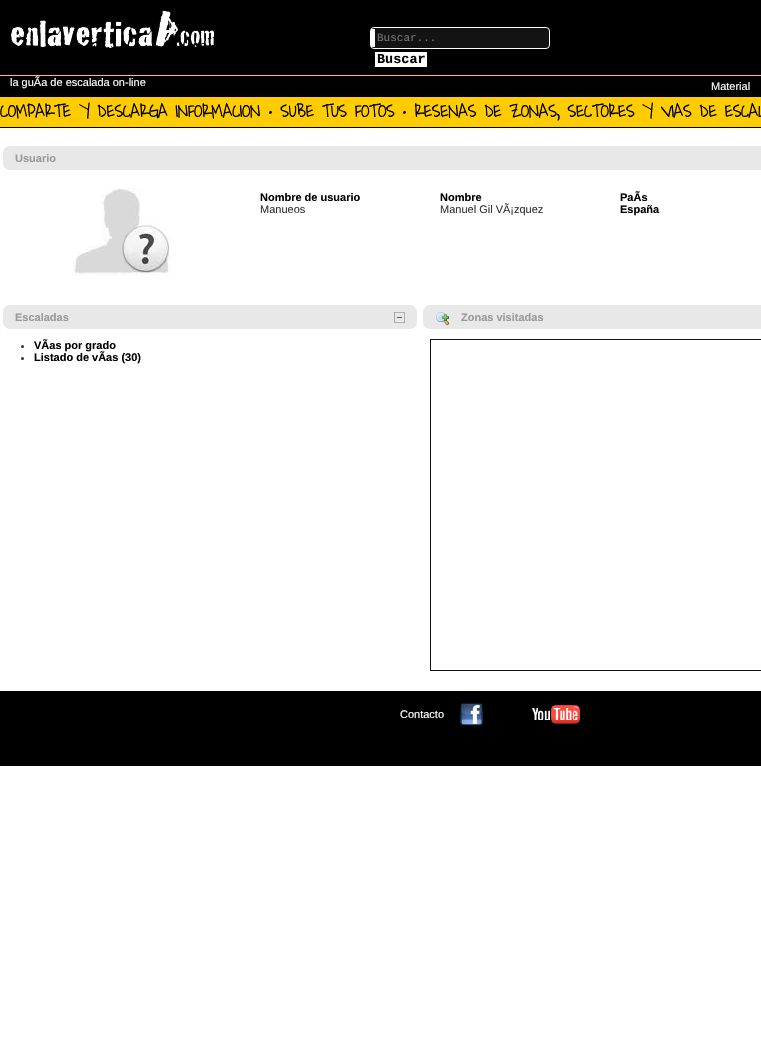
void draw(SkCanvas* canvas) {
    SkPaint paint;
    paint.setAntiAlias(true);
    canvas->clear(0xFFFFFFFF);
    paint.setColor(0xFF000000);
    canvas->drawRect(SkRect::MakeXYWH(0, 0, 761, 97), paint);
    canvas->drawImageRect(SkImages::DeferredFromEncodedData(SkData::MakeFromFileName("img1.png")), SkRect::MakeXYWH(11, 10, 203, 38), SkSamplingOptions());
    paint.setColor(0xFF131313);
    canvas->drawPath(SkPathBuilder().moveTo(375, 28).lineTo(546, 28).cubicTo(548, 28, 549, 29, 549, 31).lineTo(549, 45).cubicTo(549, 47, 548, 48, 546, 48).lineTo(375, 48).close().detach(), paint);
    paint.setStyle(SkPaint::kStroke_Style);
    paint.setStrokeWidth(1);
    paint.setColor(0xFFFFFFFF);
    canvas->drawRoundRect(SkRect::MakeXYWH(370.5f, 27.5f, 179, 21), 3.5f, 3.5f, paint);
    paint.setStyle(SkPaint::kFill_Style);
    canvas->drawRect(SkRect::MakeXYWH(371, 29, 4, 18), paint);
    SkFont font1(fontMgr->matchFamilyStyle("Liberation Mono", SkFontStyle::Normal()), 11);
    font1.setSubpixel(true);
    paint.setColor(0xFF757575);
    canvas->drawString("Buscar...", 377, 41, font1, paint);
    paint.setColor(0xFFFFFFFF);
    canvas->drawRect(SkRect::MakeXYWH(375, 52, 52, 15), paint);
    SkFont font2(fontMgr->matchFamilyStyle("Liberation Mono", SkFontStyle::Bold()), 13.5f);
    font2.setSubpixel(true);
    paint.setColor(0xFF000000);
    canvas->drawString("Buscar", 377, 63, font2, paint);
    paint.setColor(0xFFFFCC00);
    canvas->drawRect(SkRect::MakeXYWH(0, 75, 761, 1), paint);
    SkFont font3(fontMgr->matchFamilyStyle("Liberation Sans", SkFontStyle::Normal()), 11);
    font3.setSubpixel(true);
    paint.setColor(0xFFFFFFFF);
    canvas->drawString("la guÃa de escalada on-line", 10, 86, font3, paint);
    canvas->drawString("Material", 711, 90, font3, paint);
    paint.setColor(0xFFFFCC00);
    canvas->drawRect(SkRect::MakeXYWH(0, 97, 761, 30), paint);
    paint.setColor(0xFF000000);
    canvas->drawRect(SkRect::MakeXYWH(0, 127, 761, 1), paint);
    SkFont font4(fontMgr->matchFamilyStyle("Waiting for the Sunrise", SkFontStyle::Bold()), 18);
    font4.setSubpixel(true);
    canvas->drawString("COMPARTE Y DESCARGA INFORMACION · SUBE TUS FOTOS · RESENAS DE ZONAS, SECTORES Y VIAS DE ESCAL", 0, 117, font4, paint);
    paint.setColor(0xFFE8E8E8);
    canvas->drawRoundRect(SkRect::MakeXYWH(3, 146, 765, 24), 7, 7, paint);
    SkFont font5(fontMgr->matchFamilyStyle("Liberation Sans", SkFontStyle::Bold()), 11);
    font5.setSubpixel(true);
    paint.setColor(0xFF999999);
    canvas->drawString("Usuario", 15, 162, font5, paint);
    canvas->drawImageRect(SkImages::DeferredFromEncodedData(SkData::MakeFromFileName("img2.png")), SkRect::MakeXYWH(70, 188, 102, 88), SkSamplingOptions());
    paint.setColor(0xFF000000);
    canvas->drawString("Nombre de usuario", 260, 201, font5, paint);
    paint.setColor(0xFF333333);
    canvas->drawString("Manueos", 260, 213, font3, paint);
    paint.setColor(0xFF000000);
    canvas->drawString("Nombre", 440, 201, font5, paint);
    paint.setColor(0xFF333333);
    canvas->drawString("Manuel Gil VÃ¡zquez", 440, 213, font3, paint);
    paint.setColor(0xFF000000);
    canvas->drawString("PaÃs", 620, 201, font5, paint);
    canvas->drawString("España", 620, 213, font5, paint);
    paint.setColor(0xFFE8E8E8);
    canvas->drawRoundRect(SkRect::MakeXYWH(3, 305, 414, 24), 7, 7, paint);
    canvas->drawImageRect(SkImages::DeferredFromEncodedData(SkData::MakeFromFileName("img3.png")), SkRect::MakeXYWH(394, 312, 11, 11), SkSamplingOptions());
    paint.setColor(0xFF999999);
    canvas->drawString("Escaladas", 15, 321, font5, paint);
    paint.setColor(0xFF333333);
    canvas->drawCircle(22.5f, 346.5f, 1.5f, paint);
    paint.setColor(0xFF000000);
    canvas->drawString("VÃas por grado", 34, 349, font5, paint);
    paint.setColor(0xFF333333);
    canvas->drawCircle(22.5f, 358.5f, 1.5f, paint);
    paint.setColor(0xFF000000);
    canvas->drawString("Listado de vÃas (30)", 34, 361, font5, paint);
    paint.setColor(0xFFE8E8E8);
    canvas->drawRoundRect(SkRect::MakeXYWH(423, 305, 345, 24), 7, 7, paint);
    canvas->drawImageRect(SkImages::DeferredFromEncodedData(SkData::MakeFromFileName("img4.png")), SkRect::MakeXYWH(436, 312, 13, 14), SkSamplingOptions());
    paint.setColor(0xFF999999);
    canvas->drawString("Zonas visitadas", 461, 321, font5, paint);
    paint.setStyle(SkPaint::kStroke_Style);
    paint.setColor(0xFF111111);
    canvas->drawRect(SkRect::MakeXYWH(430.5f, 339.5f, 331, 331), paint);
    paint.setStyle(SkPaint::kFill_Style);
    paint.setColor(0xFF000000);
    canvas->drawRect(SkRect::MakeXYWH(0, 691, 761, 75), paint);
    paint.setColor(0xFFFFFFFF);
    canvas->drawString("Contacto", 400, 718, font3, paint);
    canvas->drawImageRect(SkImages::DeferredFromEncodedData(SkData::MakeFromFileName("img5.png")), SkRect::MakeXYWH(460, 703, 23, 23), SkSamplingOptions());
    canvas->drawImageRect(SkImages::DeferredFromEncodedData(SkData::MakeFromFileName("img6.png")), SkRect::MakeXYWH(532, 705, 48, 19), SkSamplingOptions());
}
